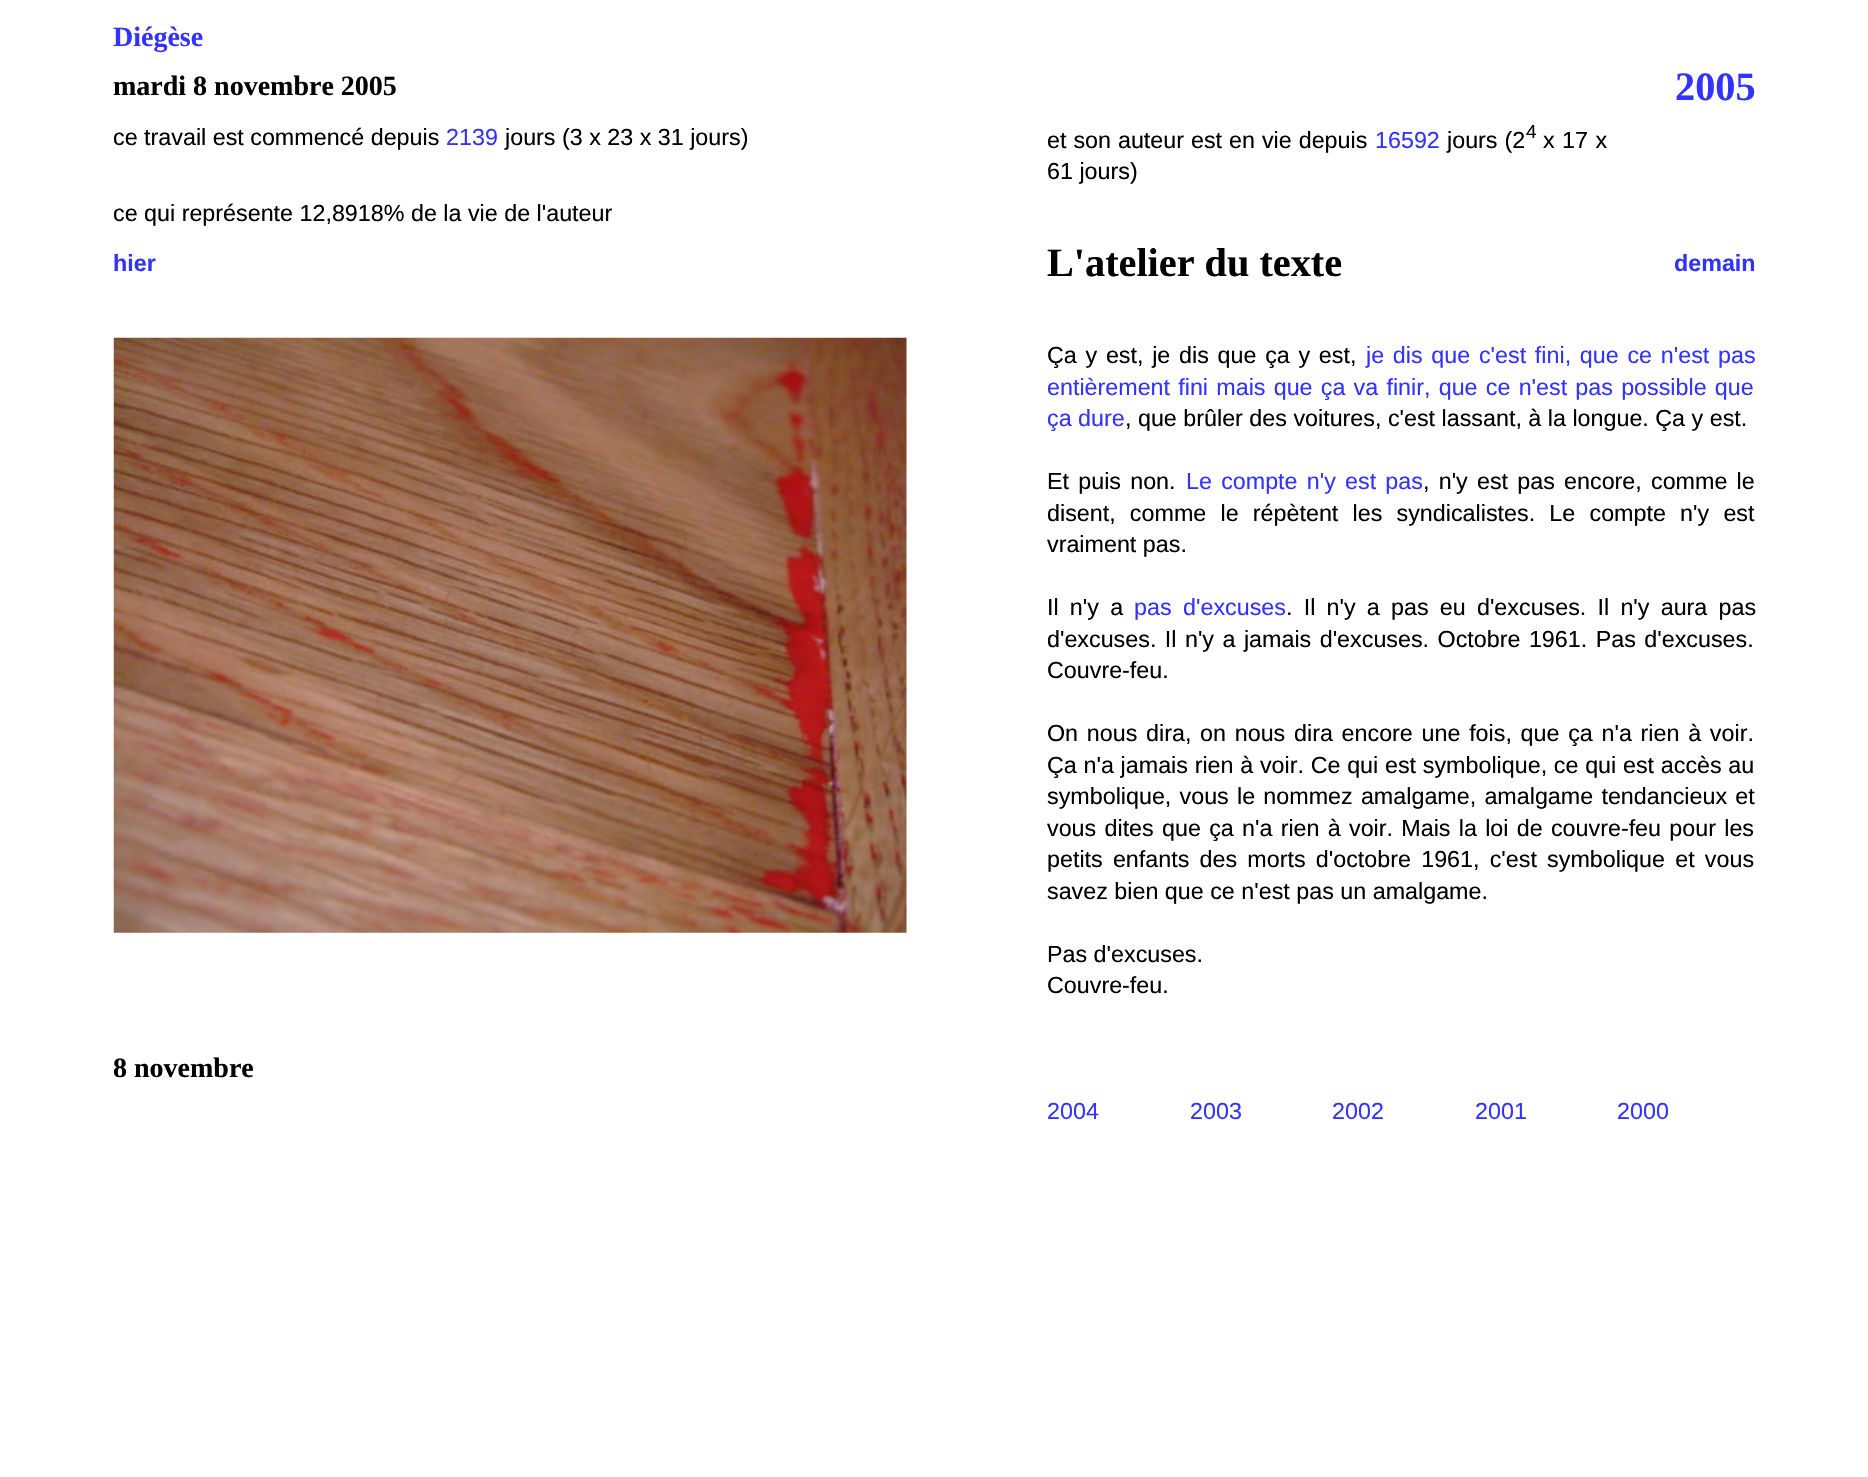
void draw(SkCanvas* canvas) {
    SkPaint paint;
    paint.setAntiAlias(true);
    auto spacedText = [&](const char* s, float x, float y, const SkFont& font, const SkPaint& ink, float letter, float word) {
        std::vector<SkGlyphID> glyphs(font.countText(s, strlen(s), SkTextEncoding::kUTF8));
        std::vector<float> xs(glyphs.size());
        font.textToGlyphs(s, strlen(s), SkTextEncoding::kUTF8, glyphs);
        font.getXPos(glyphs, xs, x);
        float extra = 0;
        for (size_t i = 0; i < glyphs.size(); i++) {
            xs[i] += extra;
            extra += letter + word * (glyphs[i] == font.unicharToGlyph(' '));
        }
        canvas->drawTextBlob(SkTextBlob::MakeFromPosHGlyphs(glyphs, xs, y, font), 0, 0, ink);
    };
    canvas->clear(0xFFFFFFFF);
    SkFont font1(fontMgr->matchFamilyStyle("Liberation Serif", SkFontStyle::Bold()), 28);
    font1.setSubpixel(true);
    paint.setColor(0xFF3333FF);
    canvas->drawString("Diégèse", 113, 46, font1, paint);
    paint.setColor(0xFF000000);
    canvas->drawString("mardi 8 novembre 2005", 113, 95, font1, paint);
    SkFont font2(fontMgr->matchFamilyStyle("Liberation Serif", SkFontStyle::Bold()), 40.25f);
    font2.setSubpixel(true);
    paint.setColor(0xFF3333FF);
    canvas->drawString("2005", 1675, 100, font2, paint);
    SkFont font3(fontMgr->matchFamilyStyle("Liberation Sans", SkFontStyle::Normal()), 23.3f);
    font3.setSubpixel(true);
    paint.setColor(0xFF000000);
    canvas->drawString("ce travail est commencé depuis", 113, 145, font3, paint);
    paint.setColor(0xFF3333FF);
    canvas->drawString("2139", 446, 145, font3, paint);
    paint.setColor(0xFF000000);
    canvas->drawString("jours (3 x 23 x 31 jours)", 505, 145, font3, paint);
    spacedText("et son auteur est en vie depuis", 1047, 148, font3, paint, 0, 0.5f);
    paint.setColor(0xFF3333FF);
    canvas->drawString("16592", 1375, 148, font3, paint);
    paint.setColor(0xFF000000);
    spacedText("jours (2", 1447, 148, font3, paint, 0, 0.5f);
    SkFont font4(fontMgr->matchFamilyStyle("Liberation Sans", SkFontStyle::Normal()), 19);
    font4.setSubpixel(true);
    canvas->drawString("4", 1526, 138, font4, paint);
    spacedText("x 17 x", 1543, 148, font3, paint, 0, 1);
    canvas->drawString("61 jours)", 1047, 179, font3, paint);
    canvas->drawString("ce qui représente 12,8918% de la vie de l'auteur", 113, 221, font3, paint);
    SkFont font5(fontMgr->matchFamilyStyle("Liberation Sans", SkFontStyle::Bold()), 23.3f);
    font5.setSubpixel(true);
    paint.setColor(0xFF3333FF);
    canvas->drawString("hier", 113, 271, font5, paint);
    paint.setColor(0xFF000000);
    canvas->drawString("L'atelier du texte", 1047, 276, font2, paint);
    paint.setColor(0xFF3333FF);
    canvas->drawString("demain", 1674, 271, font5, paint);
    canvas->drawImageRect(SkImages::DeferredFromEncodedData(SkData::MakeFromFileName("img1.png")), SkRect::MakeXYWH(113, 337, 794, 596), SkSamplingOptions());
    paint.setColor(0xFF000000);
    spacedText("Ça y est, je dis que ça y est,", 1047, 363, font3, paint, 0, 2.25f);
    paint.setColor(0xFF3333FF);
    spacedText("je dis que c'est fini, que ce n'est pas", 1366, 363, font3, paint, 0, 2.25f);
    spacedText("entièrement fini mais que ça va finir, que ce n'est pas possible que", 1047, 395, font3, paint, 0, 1.75f);
    canvas->drawString("ça dure", 1047, 426, font3, paint);
    paint.setColor(0xFF000000);
    canvas->drawString(", que brûler des voitures, c'est lassant, à la longue. Ça y est.", 1125, 426, font3, paint);
    spacedText("Et puis non.", 1047, 489, font3, paint, 0, 2.75f);
    paint.setColor(0xFF3333FF);
    spacedText("Le compte n'y est pas", 1186, 489, font3, paint, 0, 2.75f);
    paint.setColor(0xFF000000);
    spacedText(", n'y est pas encore, comme le", 1423, 489, font3, paint, 0, 2.75f);
    spacedText("disent, comme le répètent les syndicalistes. Le compte n'y est", 1047, 521, font3, paint, 0, 7.75f);
    canvas->drawString("vraiment pas.", 1047, 552, font3, paint);
    spacedText("Il n'y a", 1047, 615, font3, paint, 0, 4.75f);
    paint.setColor(0xFF3333FF);
    spacedText("pas d'excuses", 1134, 615, font3, paint, 0, 5);
    paint.setColor(0xFF000000);
    spacedText(". Il n'y a pas eu d'excuses. Il n'y aura pas", 1286, 615, font3, paint, 0, 4.75f);
    spacedText("d'excuses. Il n'y a jamais d'excuses. Octobre 1961. Pas d'excuses.", 1047, 647, font3, paint, 0, 2);
    canvas->drawString("Couvre-feu.", 1047, 678, font3, paint);
    spacedText("On nous dira, on nous dira encore une fois, que ça n'a rien à voir.", 1047, 741, font3, paint, 0, 2.25f);
    spacedText("Ça n'a jamais rien à voir. Ce qui est symbolique, ce qui est accès au", 1047, 773, font3, paint, 0, 0.25f);
    spacedText("symbolique, vous le nommez amalgame, amalgame tendancieux et", 1047, 804, font3, paint, 0, 1.75f);
    spacedText("vous dites que ça n'a rien à voir. Mais la loi de couvre-feu pour les", 1047, 836, font3, paint, 0, 1.8f);
    spacedText("petits enfants des morts d'octobre 1961, c'est symbolique et vous", 1047, 867, font3, paint, 0, 3.75f);
    canvas->drawString("savez bien que ce n'est pas un amalgame.", 1047, 899, font3, paint);
    canvas->drawString("Pas d'excuses.", 1047, 962, font3, paint);
    canvas->drawString("Couvre-feu.", 1047, 993, font3, paint);
    canvas->drawString("8 novembre", 113, 1077, font1, paint);
    paint.setColor(0xFF3333FF);
    canvas->drawString("2004", 1047, 1119, font3, paint);
    canvas->drawString("2003", 1190, 1119, font3, paint);
    canvas->drawString("2002", 1332, 1119, font3, paint);
    canvas->drawString("2001", 1475, 1119, font3, paint);
    canvas->drawString("2000", 1617, 1119, font3, paint);
}
